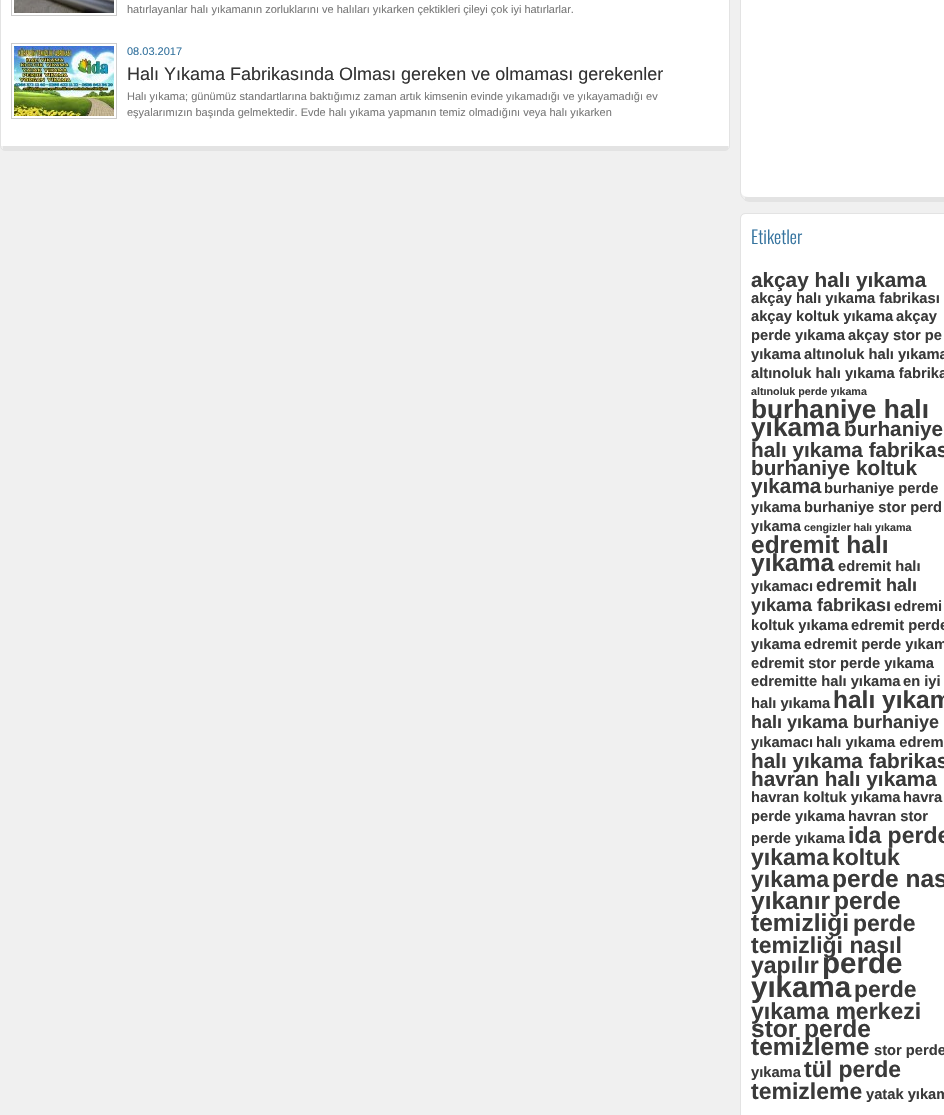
void draw(SkCanvas* canvas) {
    SkPaint paint;
    paint.setAntiAlias(true);
    canvas->clear(0xFFF0F0F0);
    paint.setColor(0xFFFFFFFF);
    canvas->drawPath(SkPathBuilder().moveTo(5, -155).lineTo(725, -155).cubicTo(727, -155, 729, -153, 729, -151).lineTo(729, 146).lineTo(1, 146).lineTo(1, -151).cubicTo(1, -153, 3, -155, 5, -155).close().detach(), paint);
    paint.setStyle(SkPaint::kStroke_Style);
    paint.setStrokeWidth(1);
    paint.setColor(0xFFE3E3E3);
    canvas->drawRoundRect(SkRect::MakeXYWH(0.5f, -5.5f, 729, 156), 4.5f, 4.5f, paint);
    paint.setStyle(SkPaint::kFill_Style);
    canvas->drawRect(SkRect::MakeXYWH(3, 146, 725, 4), paint);
    paint.setStyle(SkPaint::kStroke_Style);
    paint.setColor(0xFFCCCCCC);
    canvas->drawRect(SkRect::MakeXYWH(11.5f, -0.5f, 105, 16), paint);
    canvas->drawImageRect(SkImages::DeferredFromEncodedData(SkData::MakeFromFileName("img1.png")), SkRect::MakeXYWH(14, 0, 100, 13), SkSamplingOptions());
    SkFont font1(fontMgr->matchFamilyStyle("Liberation Sans", SkFontStyle::Normal()), 11);
    font1.setSubpixel(true);
    paint.setStyle(SkPaint::kFill_Style);
    paint.setColor(0xFF797979);
    canvas->drawString("hatırlayanlar halı yıkamanın zorluklarını ve halıları yıkarken çektikleri çileyi çok iyi hatırlarlar.", 127, 13, font1, paint);
    paint.setStyle(SkPaint::kStroke_Style);
    paint.setColor(0xFFCCCCCC);
    canvas->drawRect(SkRect::MakeXYWH(11.5f, 43.5f, 105, 75), paint);
    canvas->drawImageRect(SkImages::DeferredFromEncodedData(SkData::MakeFromFileName("img2.png")), SkRect::MakeXYWH(14, 46, 100, 70), SkSamplingOptions());
    paint.setStyle(SkPaint::kFill_Style);
    paint.setColor(0xFF36749F);
    canvas->drawString("08.03.2017", 127, 55, font1, paint);
    SkFont font2(fontMgr->matchFamilyStyle("Liberation Sans", SkFontStyle::Normal()), 18);
    font2.setSubpixel(true);
    paint.setColor(0xFF333333);
    canvas->drawString("Halı Yıkama Fabrikasında Olması gereken ve olmaması gerekenler", 127, 80, font2, paint);
    paint.setColor(0xFF797979);
    canvas->drawString("Halı yıkama; günümüz standartlarına baktığımız zaman artık kimsenin evinde yıkamadığı ve yıkayamadığı ev", 127, 100, font1, paint);
    canvas->drawString("eşyalarımızın başında gelmektedir. Evde halı yıkama yapmanın temiz olmadığını veya halı yıkarken", 127, 116, font1, paint);
    paint.setColor(0xFFFFFFFF);
    canvas->drawPath(SkPathBuilder().moveTo(745, -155).lineTo(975, -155).cubicTo(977, -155, 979, -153, 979, -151).lineTo(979, 192).cubicTo(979, 195, 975, 197, 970, 197).lineTo(750, 197).cubicTo(745, 197, 741, 195, 741, 192).lineTo(741, -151).cubicTo(741, -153, 743, -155, 745, -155).close().detach(), paint);
    paint.setStyle(SkPaint::kStroke_Style);
    paint.setColor(0xFFE3E3E3);
    canvas->drawPath(SkPathBuilder().moveTo(745, -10.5f).lineTo(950, -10.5f).cubicTo(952.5f, -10.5f, 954.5f, -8.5f, 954.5f, -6).lineTo(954.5f, 192).cubicTo(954.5f, 197, 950, 201.5f, 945, 201.5f).lineTo(750, 201.5f).cubicTo(745, 201.5f, 740.5f, 197, 740.5f, 192).lineTo(740.5f, -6).cubicTo(740.5f, -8.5f, 742.5f, -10.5f, 745, -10.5f).close().detach(), paint);
    paint.setStyle(SkPaint::kFill_Style);
    canvas->drawRect(SkRect::MakeXYWH(745, 197, 199, 4), paint);
    paint.setColor(0xFFFFFFFF);
    canvas->drawPath(SkPathBuilder().moveTo(745, 214).lineTo(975, 214).cubicTo(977, 214, 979, 216, 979, 218).lineTo(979, 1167).cubicTo(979, 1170, 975, 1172, 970, 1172).lineTo(750, 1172).cubicTo(745, 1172, 741, 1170, 741, 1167).lineTo(741, 218).cubicTo(741, 216, 743, 214, 745, 214).close().detach(), paint);
    paint.setStyle(SkPaint::kStroke_Style);
    paint.setColor(0xFFE3E3E3);
    canvas->drawPath(SkPathBuilder().moveTo(745, 213.5f).lineTo(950, 213.5f).cubicTo(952.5f, 213.5f, 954.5f, 215.5f, 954.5f, 218).lineTo(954.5f, 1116).cubicTo(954.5f, 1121, 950, 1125.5f, 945, 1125.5f).lineTo(750, 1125.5f).cubicTo(745, 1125.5f, 740.5f, 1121, 740.5f, 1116).lineTo(740.5f, 218).cubicTo(740.5f, 215.5f, 742.5f, 213.5f, 745, 213.5f).close().detach(), paint);
    SkFont font3(fontMgr->matchFamilyStyle("Oswald", SkFontStyle(300, SkFontStyle::kNormal_Width, SkFontStyle::kUpright_Slant)), 18);
    font3.setSubpixel(true);
    paint.setStyle(SkPaint::kFill_Style);
    paint.setColor(0xFF36749F);
    canvas->drawString("Etiketler", 751, 244, font3, paint);
    SkFont font4(fontMgr->matchFamilyStyle("Liberation Sans", SkFontStyle::Bold()), 20.75f);
    font4.setSubpixel(true);
    paint.setColor(0xFF3A3A3A);
    canvas->drawString("akçay halı yıkama", 751, 287, font4, paint);
    SkFont font5(fontMgr->matchFamilyStyle("Liberation Sans", SkFontStyle::Bold()), 14.7f);
    font5.setSubpixel(true);
    canvas->drawString("akçay halı yıkama fabrikası", 751, 303, font5, paint);
    canvas->drawString("akçay koltuk yıkama", 751, 321, font5, paint);
    canvas->drawString("akçay", 896, 321, font5, paint);
    canvas->drawString("perde yıkama", 751, 340, font5, paint);
    canvas->drawString("akçay stor pe", 848, 340, font5, paint);
    canvas->drawString("yıkama", 751, 359, font5, paint);
    canvas->drawString("altınoluk halı yıkama", 804, 359, font5, paint);
    canvas->drawString("altınoluk halı yıkama fabrika", 751, 378, font5, paint);
    SkFont font6(fontMgr->matchFamilyStyle("Liberation Sans", SkFontStyle::Bold()), 10.75f);
    font6.setSubpixel(true);
    canvas->drawString("altınoluk perde yıkama", 751, 395, font6, paint);
    SkFont font7(fontMgr->matchFamilyStyle("Liberation Sans", SkFontStyle::Bold()), 26.25f);
    font7.setSubpixel(true);
    canvas->drawString("burhaniye halı", 751, 418, font7, paint);
    canvas->drawString("yıkama", 751, 436, font7, paint);
    canvas->drawString("burhaniye", 844, 436, font4, paint);
    canvas->drawString("halı yıkama fabrikas", 751, 457, font4, paint);
    canvas->drawString("burhaniye koltuk", 751, 475, font4, paint);
    canvas->drawString("yıkama", 751, 493, font4, paint);
    canvas->drawString("burhaniye perde", 824, 493, font5, paint);
    canvas->drawString("yıkama", 751, 512, font5, paint);
    canvas->drawString("burhaniye stor perd", 804, 512, font5, paint);
    canvas->drawString("yıkama", 751, 531, font5, paint);
    canvas->drawString("cengizler halı yıkama", 804, 531, font6, paint);
    SkFont font8(fontMgr->matchFamilyStyle("Liberation Sans", SkFontStyle::Bold()), 24.5f);
    font8.setSubpixel(true);
    canvas->drawString("edremit halı", 751, 553, font8, paint);
    canvas->drawString("yıkama", 751, 571, font8, paint);
    canvas->drawString("edremit halı", 838, 571, font5, paint);
    canvas->drawString("yıkamacı", 751, 591, font5, paint);
    SkFont font9(fontMgr->matchFamilyStyle("Liberation Sans", SkFontStyle::Bold()), 18);
    font9.setSubpixel(true);
    canvas->drawString("edremit halı", 816, 591, font9, paint);
    canvas->drawString("yıkama fabrikası", 751, 611, font9, paint);
    canvas->drawString("edremi", 894, 611, font5, paint);
    canvas->drawString("koltuk yıkama", 751, 630, font5, paint);
    canvas->drawString("edremit perde", 851, 630, font5, paint);
    canvas->drawString("yıkama", 751, 649, font5, paint);
    canvas->drawString("edremit perde yıkam", 804, 649, font5, paint);
    canvas->drawString("edremit stor perde yıkama", 751, 668, font5, paint);
    canvas->drawString("edremitte halı yıkama", 751, 686, font5, paint);
    canvas->drawString("en iyi", 903, 686, font5, paint);
    canvas->drawString("halı yıkama", 751, 708, font5, paint);
    canvas->drawString("halı yıkam", 833, 708, font8, paint);
    canvas->drawString("halı yıkama burhaniye", 751, 728, font9, paint);
    canvas->drawString("yıkamacı", 751, 747, font5, paint);
    canvas->drawString("halı yıkama edrem", 816, 747, font5, paint);
    canvas->drawString("halı yıkama fabrikas", 751, 768, font4, paint);
    canvas->drawString("havran halı yıkama", 751, 786, font4, paint);
    canvas->drawString("havran koltuk yıkama", 751, 802, font5, paint);
    canvas->drawString("havra", 903, 802, font5, paint);
    canvas->drawString("perde yıkama", 751, 821, font5, paint);
    canvas->drawString("havran stor", 848, 821, font5, paint);
    canvas->drawString("perde yıkama", 751, 843, font5, paint);
    SkFont font10(fontMgr->matchFamilyStyle("Liberation Sans", SkFontStyle::Bold()), 23);
    font10.setSubpixel(true);
    canvas->drawString("ida perde", 848, 843, font10, paint);
    canvas->drawString("yıkama", 751, 865, font10, paint);
    canvas->drawString("koltuk", 832, 865, font10, paint);
    canvas->drawString("yıkama", 751, 887, font10, paint);
    canvas->drawString("perde nas", 832, 887, font8, paint);
    canvas->drawString("yıkanır", 751, 909, font8, paint);
    canvas->drawString("perde", 834, 909, font8, paint);
    canvas->drawString("temizliği", 751, 931, font8, paint);
    canvas->drawString("perde", 853, 931, font10, paint);
    canvas->drawString("temizliği nasıl", 751, 953, font10, paint);
    canvas->drawString("yapılır", 751, 973, font10, paint);
    SkFont font11(fontMgr->matchFamilyStyle("Liberation Sans", SkFontStyle::Bold()), 29.5f);
    font11.setSubpixel(true);
    canvas->drawString("perde", 822, 973, font11, paint);
    canvas->drawString("yıkama", 751, 997, font11, paint);
    canvas->drawString("perde", 854, 997, font10, paint);
    canvas->drawString("yıkama merkezi", 751, 1019, font10, paint);
    canvas->drawString("stor perde", 751, 1037, font8, paint);
    canvas->drawString("temizleme", 751, 1055, font8, paint);
    canvas->drawString("stor perde", 874, 1055, font5, paint);
    canvas->drawString("yıkama", 751, 1077, font5, paint);
    canvas->drawString("tül perde", 804, 1077, font10, paint);
    canvas->drawString("temizleme", 751, 1099, font10, paint);
    canvas->drawString("yatak yıkam", 866, 1099, font5, paint);
}
